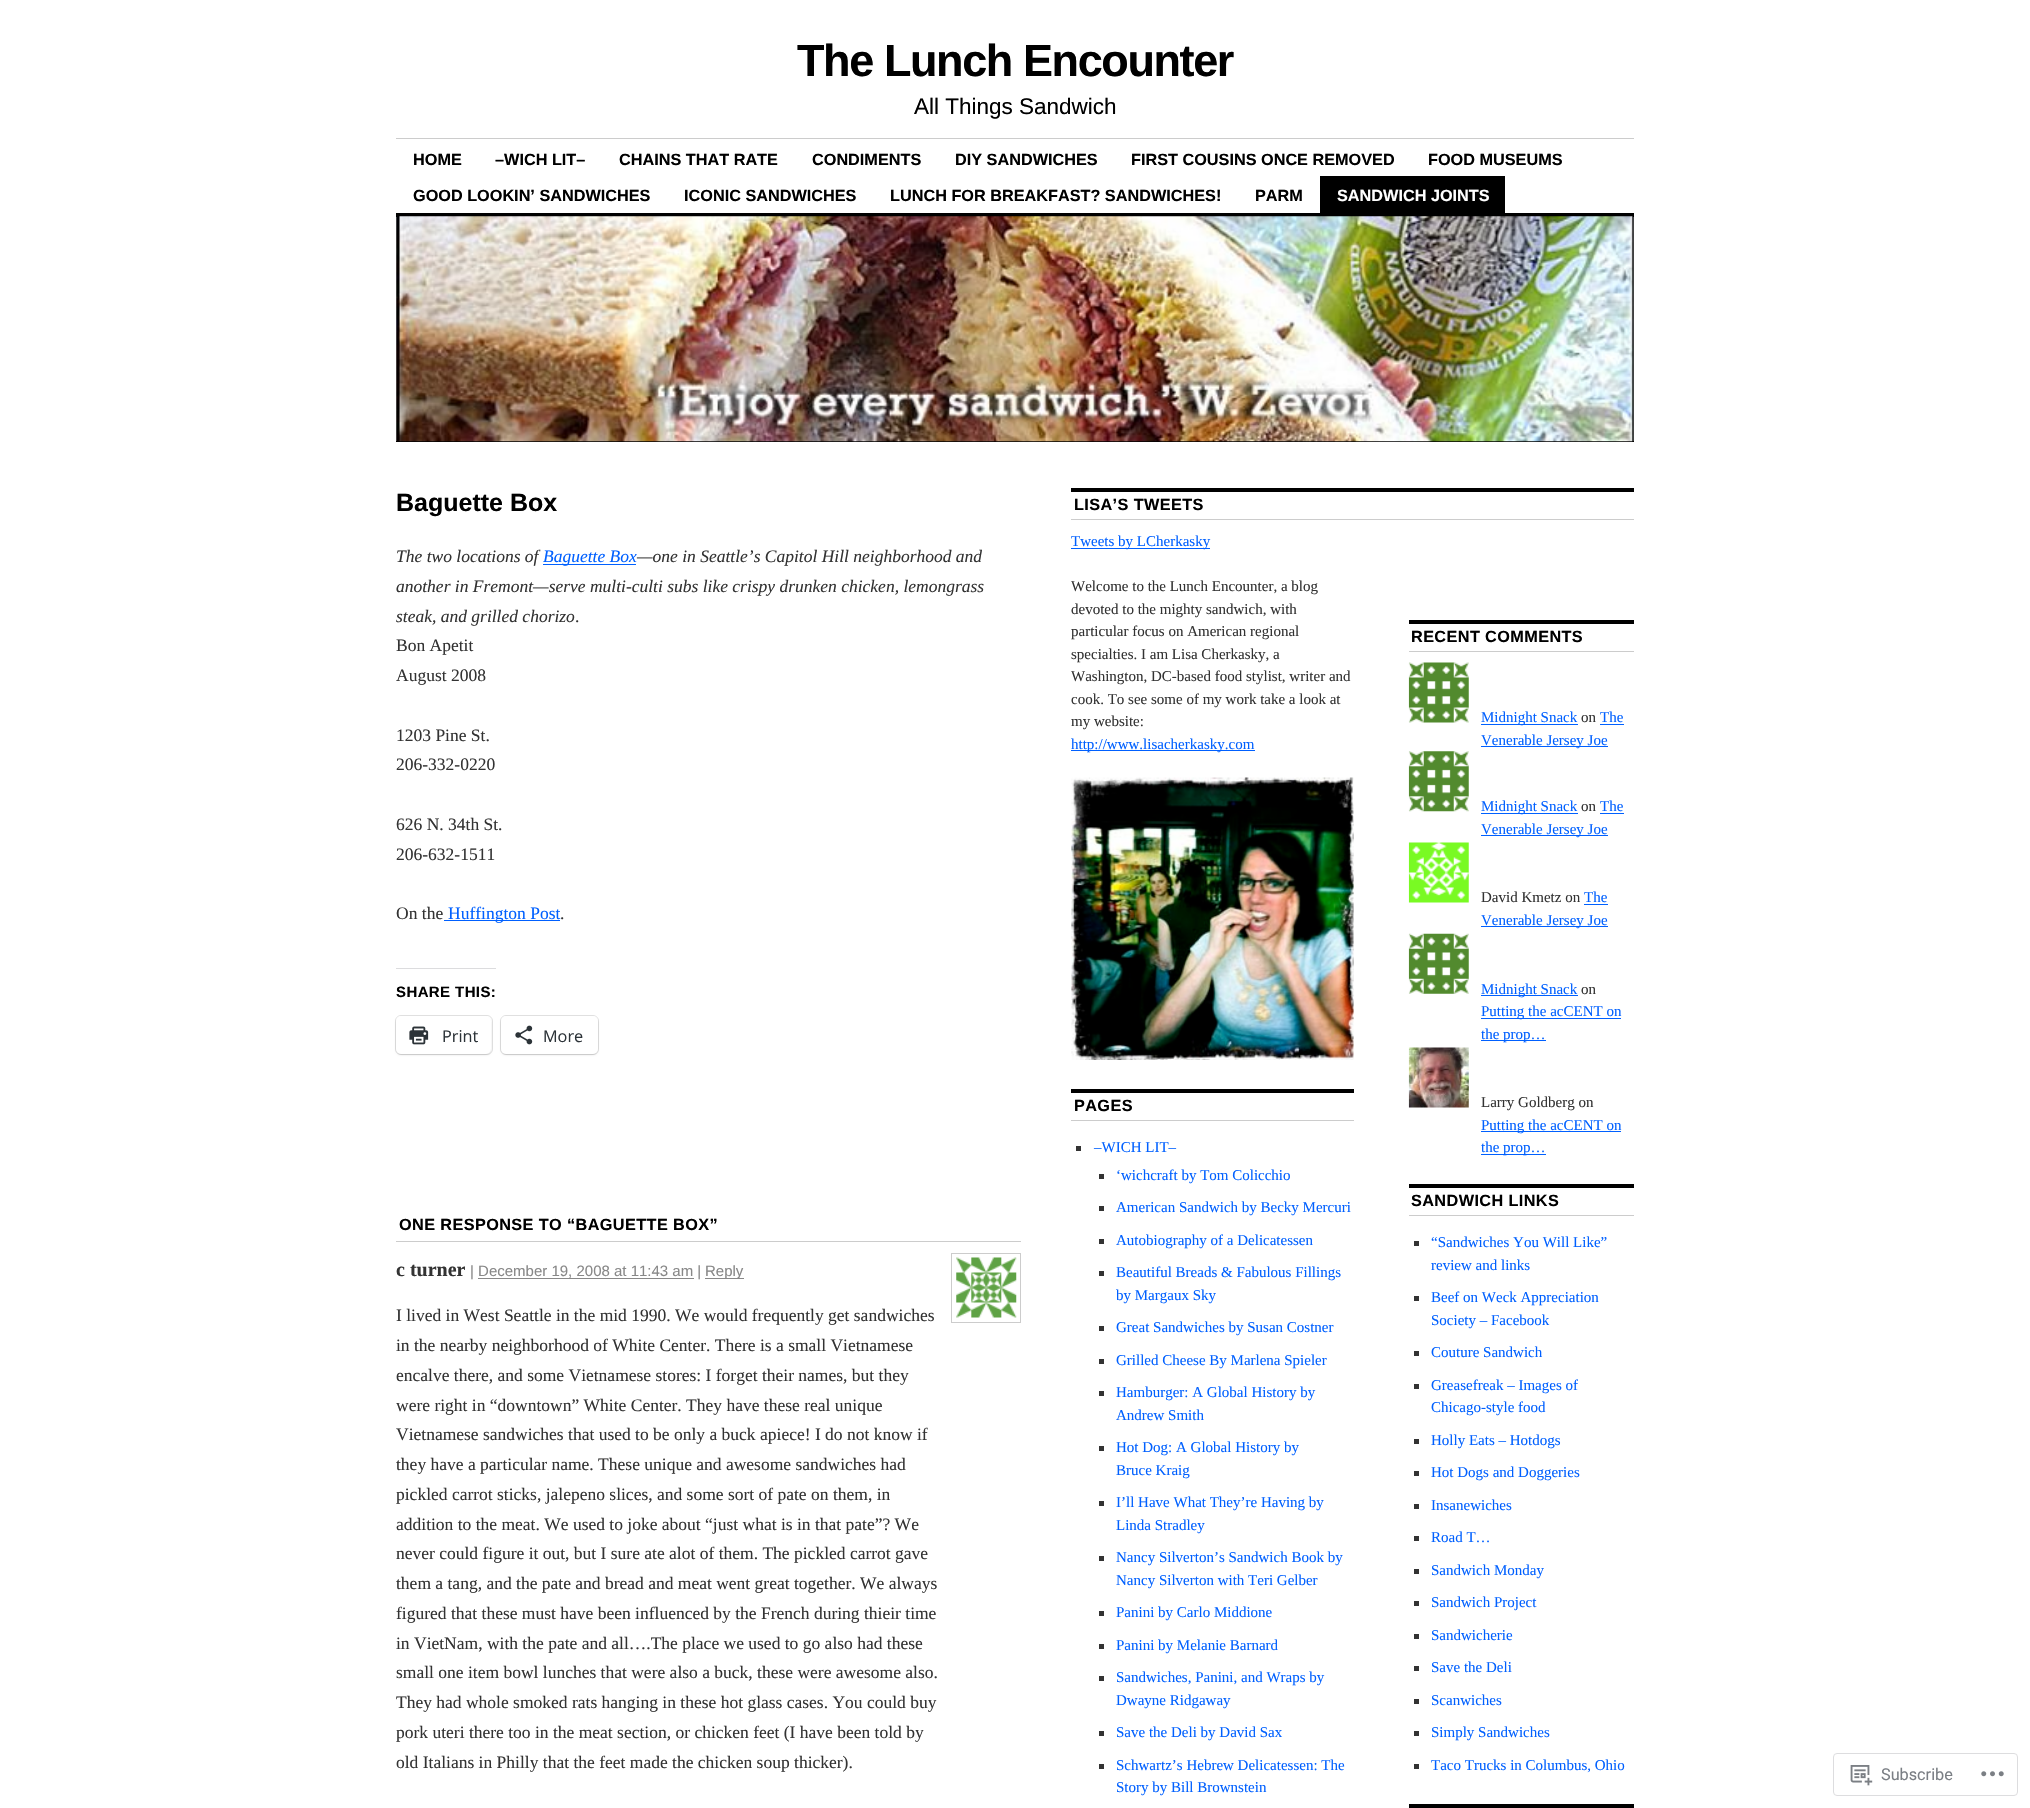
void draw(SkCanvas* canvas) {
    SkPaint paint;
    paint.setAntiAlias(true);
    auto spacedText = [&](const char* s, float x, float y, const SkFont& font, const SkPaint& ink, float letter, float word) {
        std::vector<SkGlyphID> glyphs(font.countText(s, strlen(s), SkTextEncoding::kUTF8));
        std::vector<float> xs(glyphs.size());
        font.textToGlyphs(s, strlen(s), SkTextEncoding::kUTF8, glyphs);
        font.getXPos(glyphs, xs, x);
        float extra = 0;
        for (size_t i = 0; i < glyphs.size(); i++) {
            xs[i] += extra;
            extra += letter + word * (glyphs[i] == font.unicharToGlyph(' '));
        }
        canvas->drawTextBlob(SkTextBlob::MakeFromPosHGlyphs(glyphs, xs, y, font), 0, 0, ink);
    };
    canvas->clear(0xFFFFFFFF);
    SkFont font1(fontMgr->matchFamilyStyle("Liberation Sans", SkFontStyle::Bold()), 45);
    font1.setSubpixel(true);
    paint.setColor(0xFF000000);
    spacedText("The Lunch Encounter", 797, 76, font1, paint, -1.4f, 0);
    SkFont font2(fontMgr->matchFamilyStyle("Liberation Sans", SkFontStyle::Normal()), 22.5f);
    font2.setSubpixel(true);
    canvas->drawString("All Things Sandwich", 914, 114, font2, paint);
    paint.setColor(0xFFCCCCCC);
    canvas->drawRect(SkRect::MakeXYWH(396, 138, 1238, 1), paint);
    SkFont font3(fontMgr->matchFamilyStyle("Liberation Sans", SkFontStyle::Bold()), 16.25f);
    font3.setSubpixel(true);
    paint.setColor(0xFF000000);
    canvas->drawString("HOME", 413, 165, font3, paint);
    canvas->drawString("–WICH LIT–", 495, 165, font3, paint);
    canvas->drawString("CHAINS THAT RATE", 619, 165, font3, paint);
    canvas->drawString("CONDIMENTS", 812, 165, font3, paint);
    canvas->drawString("DIY SANDWICHES", 955, 165, font3, paint);
    canvas->drawString("FIRST COUSINS ONCE REMOVED", 1131, 165, font3, paint);
    canvas->drawString("FOOD MUSEUMS", 1428, 165, font3, paint);
    canvas->drawString("GOOD LOOKIN’ SANDWICHES", 413, 201, font3, paint);
    canvas->drawString("ICONIC SANDWICHES", 684, 201, font3, paint);
    canvas->drawString("LUNCH FOR BREAKFAST? SANDWICHES!", 890, 201, font3, paint);
    canvas->drawString("PARM", 1255, 201, font3, paint);
    canvas->drawRect(SkRect::MakeXYWH(1320, 176, 185, 37), paint);
    paint.setColor(0xFFFFFFFF);
    canvas->drawString("SANDWICH JOINTS", 1337, 201, font3, paint);
    paint.setColor(0xFF000000);
    canvas->drawRect(SkRect::MakeXYWH(396, 213, 1238, 4), paint);
    canvas->drawRect(SkRect::MakeXYWH(396, 441, 1238, 1), paint);
    canvas->drawImageRect(SkImages::DeferredFromEncodedData(SkData::MakeFromFileName("img1.png")), SkRect::MakeXYWH(396, 216, 1238, 226), SkSamplingOptions());
    SkFont font4(fontMgr->matchFamilyStyle("Liberation Sans", SkFontStyle::Bold()), 25);
    font4.setSubpixel(true);
    canvas->drawString("Baguette Box", 396, 511, font4, paint);
    SkFont font5(fontMgr->matchFamilyStyle("Liberation Serif", SkFontStyle::Italic()), 17.5f);
    font5.setSubpixel(true);
    paint.setColor(0xFF333333);
    canvas->drawString("The two locations of", 396, 562, font5, paint);
    paint.setColor(0xFF0060FF);
    canvas->drawRect(SkRect::MakeXYWH(543, 564, 93, 1), paint);
    canvas->drawString("Baguette Box", 543, 562, font5, paint);
    paint.setColor(0xFF333333);
    canvas->drawString("—one in Seattle’s Capitol Hill neighborhood and", 637, 562, font5, paint);
    canvas->drawString("another in Fremont—serve multi-culti subs like crispy drunken chicken, lemongrass", 396, 592, font5, paint);
    canvas->drawString("steak, and grilled chorizo", 396, 622, font5, paint);
    SkFont font6(fontMgr->matchFamilyStyle("Liberation Serif", SkFontStyle::Normal()), 17.5f);
    font6.setSubpixel(true);
    canvas->drawString(".", 575, 622, font6, paint);
    canvas->drawString("Bon Apetit", 396, 651, font6, paint);
    canvas->drawString("August 2008", 396, 681, font6, paint);
    canvas->drawString("1203 Pine St.", 396, 741, font6, paint);
    canvas->drawString("206-332-0220", 396, 770, font6, paint);
    canvas->drawString("626 N. 34th St.", 396, 830, font6, paint);
    canvas->drawString("206-632-1511", 396, 860, font6, paint);
    canvas->drawString("On the", 396, 919, font6, paint);
    paint.setColor(0xFF0060FF);
    canvas->drawRect(SkRect::MakeXYWH(444, 920, 116, 1), paint);
    canvas->drawString("Huffington Post", 448, 919, font6, paint);
    paint.setColor(0xFF333333);
    canvas->drawString(".", 560, 919, font6, paint);
    paint.setColor(0xFFDCDCDE);
    canvas->drawRect(SkRect::MakeXYWH(396, 968, 100, 1), paint);
    SkFont font7(fontMgr->matchFamilyStyle("Liberation Sans", SkFontStyle::Bold()), 15);
    font7.setSubpixel(true);
    paint.setColor(0xFF000000);
    spacedText("SHARE THIS:", 396, 997, font7, paint, 0.4f, 0);
    paint.setStyle(SkPaint::kStroke_Style);
    paint.setStrokeWidth(1);
    paint.setColor(0xFFE0E0E0);
    canvas->drawRoundRect(SkRect::MakeXYWH(395.5f, 1015.5f, 97, 39), 5.5f, 5.5f, paint);
    paint.setStyle(SkPaint::kFill_Style);
    paint.setColor(0x1F000000);
    paint.setMaskFilter(SkMaskFilter::MakeBlur(kNormal_SkBlurStyle, 1));
    canvas->drawRoundRect(SkRect::MakeXYWH(396, 1018, 95, 37), 5, 5, paint);
    paint.setMaskFilter(nullptr);
    paint.setColor(0xFFFFFFFF);
    canvas->drawRoundRect(SkRect::MakeXYWH(396, 1016, 95, 38), 5, 5, paint);
    canvas->drawImageRect(SkImages::DeferredFromEncodedData(SkData::MakeFromFileName("img2.png")), SkRect::MakeXYWH(409, 1026, 20, 19), SkSamplingOptions());
    SkFont font8(fontMgr->matchFamilyStyle("Open Sans", SkFontStyle::Normal()), 16.25f);
    font8.setSubpixel(true);
    paint.setColor(0xFF2C3338);
    canvas->drawString("Print", 442, 1042, font8, paint);
    paint.setStyle(SkPaint::kStroke_Style);
    paint.setColor(0xFFE0E0E0);
    canvas->drawRoundRect(SkRect::MakeXYWH(500.5f, 1015.5f, 98, 39), 5.5f, 5.5f, paint);
    paint.setStyle(SkPaint::kFill_Style);
    paint.setColor(0x1F000000);
    paint.setMaskFilter(SkMaskFilter::MakeBlur(kNormal_SkBlurStyle, 1));
    canvas->drawRoundRect(SkRect::MakeXYWH(501, 1018, 97, 37), 5, 5, paint);
    paint.setMaskFilter(nullptr);
    paint.setColor(0xFFFFFFFF);
    canvas->drawRoundRect(SkRect::MakeXYWH(501, 1016, 97, 38), 5, 5, paint);
    canvas->drawImageRect(SkImages::DeferredFromEncodedData(SkData::MakeFromFileName("img3.png")), SkRect::MakeXYWH(515, 1025, 18, 20), SkSamplingOptions());
    paint.setColor(0xFF2C3338);
    canvas->drawString("More", 543, 1042, font8, paint);
    paint.setColor(0xFFCCCCCC);
    canvas->drawRect(SkRect::MakeXYWH(396, 1241, 625, 1), paint);
    paint.setColor(0xFF000000);
    spacedText("ONE RESPONSE TO “BAGUETTE BOX”", 399, 1230, font3, paint, 0.4f, 0);
    SkFont font9(fontMgr->matchFamilyStyle("Liberation Serif", SkFontStyle::Bold()), 20);
    font9.setSubpixel(true);
    paint.setColor(0xFF333333);
    canvas->drawString("c turner", 396, 1276, font9, paint);
    SkFont font10(fontMgr->matchFamilyStyle("Liberation Sans", SkFontStyle::Normal()), 15);
    font10.setSubpixel(true);
    paint.setColor(0xFF888888);
    canvas->drawString("| December 19, 2008 at 11:43 am |", 470, 1276, font10, paint);
    canvas->drawRect(SkRect::MakeXYWH(478, 1278, 216, 1), paint);
    canvas->drawRect(SkRect::MakeXYWH(705, 1278, 39, 1), paint);
    canvas->drawString("Reply", 705, 1276, font10, paint);
    paint.setStyle(SkPaint::kStroke_Style);
    paint.setColor(0xFFCCCCCC);
    canvas->drawRect(SkRect::MakeXYWH(951.5f, 1253.5f, 69, 69), paint);
    canvas->drawImageRect(SkImages::DeferredFromEncodedData(SkData::MakeFromFileName("img4.png")), SkRect::MakeXYWH(956, 1257, 61, 61), SkSamplingOptions());
    paint.setStyle(SkPaint::kFill_Style);
    paint.setColor(0xFF333333);
    canvas->drawString("I lived in West Seattle in the mid 1990. We would frequently get sandwiches", 396, 1321, font6, paint);
    canvas->drawString("in the nearby neighborhood of White Center. There is a small Vietnamese", 396, 1351, font6, paint);
    canvas->drawString("encalve there, and some Vietnamese stores: I forget their names, but they", 396, 1381, font6, paint);
    canvas->drawString("were right in “downtown” White Center. They have these real unique", 396, 1411, font6, paint);
    canvas->drawString("Vietnamese sandwiches that used to be only a buck apiece! I do not know if", 396, 1440, font6, paint);
    canvas->drawString("they have a particular name. These unique and awesome sandwiches had", 396, 1470, font6, paint);
    canvas->drawString("pickled carrot sticks, jalepeno slices, and some sort of pate on them, in", 396, 1500, font6, paint);
    canvas->drawString("addition to the meat. We used to joke about “just what is in that pate”? We", 396, 1530, font6, paint);
    canvas->drawString("never could figure it out, but I sure ate alot of them. The pickled carrot gave", 396, 1559, font6, paint);
    canvas->drawString("them a tang, and the pate and bread and meat went great together. We always", 396, 1589, font6, paint);
    canvas->drawString("figured that these must have been influenced by the French during thieir time", 396, 1619, font6, paint);
    canvas->drawString("in VietNam, with the pate and all….The place we used to go also had these", 396, 1649, font6, paint);
    canvas->drawString("small one item bowl lunches that were also a buck, these were awesome also.", 396, 1678, font6, paint);
    canvas->drawString("They had whole smoked rats hanging in these hot glass cases. You could buy", 396, 1708, font6, paint);
    canvas->drawString("pork uteri there too in the meat section, or chicken feet (I have been told by", 396, 1738, font6, paint);
    canvas->drawString("old Italians in Philly that the feet made the chicken soup thicker).", 396, 1768, font6, paint);
    paint.setColor(0xFF000000);
    canvas->drawRect(SkRect::MakeXYWH(1071, 488, 563, 4), paint);
    paint.setColor(0xFFCCCCCC);
    canvas->drawRect(SkRect::MakeXYWH(1071, 519, 563, 1), paint);
    paint.setColor(0xFF000000);
    spacedText("LISA’S TWEETS", 1074, 510, font3, paint, 0.4f, 0);
    paint.setColor(0xFF0060FF);
    canvas->drawRect(SkRect::MakeXYWH(1071, 548, 139, 1), paint);
    SkFont font11(fontMgr->matchFamilyStyle("Liberation Serif", SkFontStyle::Normal()), 15);
    font11.setSubpixel(true);
    canvas->drawString("Tweets by LCherkasky", 1071, 546, font11, paint);
    paint.setColor(0xFF333333);
    canvas->drawString("Welcome to the Lunch Encounter, a blog", 1071, 591, font11, paint);
    canvas->drawString("devoted to the mighty sandwich, with", 1071, 614, font11, paint);
    canvas->drawString("particular focus on American regional", 1071, 636, font11, paint);
    canvas->drawString("specialties. I am Lisa Cherkasky, a", 1071, 659, font11, paint);
    canvas->drawString("Washington, DC-based food stylist, writer and", 1071, 681, font11, paint);
    canvas->drawString("cook. To see some of my work take a look at", 1071, 704, font11, paint);
    canvas->drawString("my website:", 1071, 726, font11, paint);
    paint.setColor(0xFF0060FF);
    canvas->drawRect(SkRect::MakeXYWH(1071, 750, 184, 1), paint);
    canvas->drawString("http://www.lisacherkasky.com", 1071, 749, font11, paint);
    canvas->drawImageRect(SkImages::DeferredFromEncodedData(SkData::MakeFromFileName("img5.png")), SkRect::MakeXYWH(1071, 777, 283, 283), SkSamplingOptions());
    paint.setColor(0xFF000000);
    canvas->drawRect(SkRect::MakeXYWH(1071, 1089, 283, 4), paint);
    paint.setColor(0xFFCCCCCC);
    canvas->drawRect(SkRect::MakeXYWH(1071, 1120, 283, 1), paint);
    paint.setColor(0xFF000000);
    spacedText("PAGES", 1074, 1111, font3, paint, 0.4f, 0);
    paint.setColor(0xFF333333);
    canvas->drawRect(SkRect::MakeXYWH(1076, 1146, 5, 5), paint);
    paint.setColor(0xFF0060FF);
    canvas->drawString("–WICH LIT–", 1094, 1152, font11, paint);
    paint.setColor(0xFF333333);
    canvas->drawRect(SkRect::MakeXYWH(1099, 1174, 5, 5), paint);
    paint.setColor(0xFF0060FF);
    canvas->drawString("‘wichcraft by Tom Colicchio", 1116, 1180, font11, paint);
    paint.setColor(0xFF333333);
    canvas->drawRect(SkRect::MakeXYWH(1099, 1206, 5, 5), paint);
    paint.setColor(0xFF0060FF);
    canvas->drawString("American Sandwich by Becky Mercuri", 1116, 1212, font11, paint);
    paint.setColor(0xFF333333);
    canvas->drawRect(SkRect::MakeXYWH(1099, 1239, 5, 5), paint);
    paint.setColor(0xFF0060FF);
    canvas->drawString("Autobiography of a Delicatessen", 1116, 1245, font11, paint);
    paint.setColor(0xFF333333);
    canvas->drawRect(SkRect::MakeXYWH(1099, 1271, 5, 5), paint);
    paint.setColor(0xFF0060FF);
    canvas->drawString("Beautiful Breads & Fabulous Fillings", 1116, 1277, font11, paint);
    canvas->drawString("by Margaux Sky", 1116, 1300, font11, paint);
    paint.setColor(0xFF333333);
    canvas->drawRect(SkRect::MakeXYWH(1099, 1326, 5, 5), paint);
    paint.setColor(0xFF0060FF);
    canvas->drawString("Great Sandwiches by Susan Costner", 1116, 1332, font11, paint);
    paint.setColor(0xFF333333);
    canvas->drawRect(SkRect::MakeXYWH(1099, 1359, 5, 5), paint);
    paint.setColor(0xFF0060FF);
    canvas->drawString("Grilled Cheese By Marlena Spieler", 1116, 1365, font11, paint);
    paint.setColor(0xFF333333);
    canvas->drawRect(SkRect::MakeXYWH(1099, 1391, 5, 5), paint);
    paint.setColor(0xFF0060FF);
    canvas->drawString("Hamburger: A Global History by", 1116, 1397, font11, paint);
    canvas->drawString("Andrew Smith", 1116, 1420, font11, paint);
    paint.setColor(0xFF333333);
    canvas->drawRect(SkRect::MakeXYWH(1099, 1446, 5, 5), paint);
    paint.setColor(0xFF0060FF);
    canvas->drawString("Hot Dog: A Global History by", 1116, 1452, font11, paint);
    canvas->drawString("Bruce Kraig", 1116, 1475, font11, paint);
    paint.setColor(0xFF333333);
    canvas->drawRect(SkRect::MakeXYWH(1099, 1501, 5, 5), paint);
    paint.setColor(0xFF0060FF);
    canvas->drawString("I’ll Have What They’re Having by", 1116, 1507, font11, paint);
    canvas->drawString("Linda Stradley", 1116, 1530, font11, paint);
    paint.setColor(0xFF333333);
    canvas->drawRect(SkRect::MakeXYWH(1099, 1556, 5, 5), paint);
    paint.setColor(0xFF0060FF);
    canvas->drawString("Nancy Silverton’s Sandwich Book by", 1116, 1562, font11, paint);
    canvas->drawString("Nancy Silverton with Teri Gelber", 1116, 1585, font11, paint);
    paint.setColor(0xFF333333);
    canvas->drawRect(SkRect::MakeXYWH(1099, 1611, 5, 5), paint);
    paint.setColor(0xFF0060FF);
    canvas->drawString("Panini by Carlo Middione", 1116, 1617, font11, paint);
    paint.setColor(0xFF333333);
    canvas->drawRect(SkRect::MakeXYWH(1099, 1644, 5, 5), paint);
    paint.setColor(0xFF0060FF);
    canvas->drawString("Panini by Melanie Barnard", 1116, 1650, font11, paint);
    paint.setColor(0xFF333333);
    canvas->drawRect(SkRect::MakeXYWH(1099, 1676, 5, 5), paint);
    paint.setColor(0xFF0060FF);
    canvas->drawString("Sandwiches, Panini, and Wraps by", 1116, 1682, font11, paint);
    canvas->drawString("Dwayne Ridgaway", 1116, 1705, font11, paint);
    paint.setColor(0xFF333333);
    canvas->drawRect(SkRect::MakeXYWH(1099, 1731, 5, 5), paint);
    paint.setColor(0xFF0060FF);
    canvas->drawString("Save the Deli by David Sax", 1116, 1737, font11, paint);
    paint.setColor(0xFF333333);
    canvas->drawRect(SkRect::MakeXYWH(1099, 1764, 5, 5), paint);
    paint.setColor(0xFF0060FF);
    canvas->drawString("Schwartz’s Hebrew Delicatessen: The", 1116, 1770, font11, paint);
    canvas->drawString("Story by Bill Brownstein", 1116, 1792, font11, paint);
    paint.setColor(0xFF000000);
    canvas->drawRect(SkRect::MakeXYWH(1409, 620, 225, 4), paint);
    paint.setColor(0xFFCCCCCC);
    canvas->drawRect(SkRect::MakeXYWH(1409, 651, 225, 1), paint);
    paint.setColor(0xFF000000);
    spacedText("RECENT COMMENTS", 1411, 642, font3, paint, 0.4f, 0);
    canvas->drawImageRect(SkImages::DeferredFromEncodedData(SkData::MakeFromFileName("img6.png")), SkRect::MakeXYWH(1408, 662, 61, 61), SkSamplingOptions());
    paint.setColor(0xFF0060FF);
    canvas->drawRect(SkRect::MakeXYWH(1481, 724, 97, 1), paint);
    canvas->drawString("Midnight Snack", 1481, 722, font11, paint);
    paint.setColor(0xFF333333);
    canvas->drawString("on", 1581, 722, font11, paint);
    paint.setColor(0xFF0060FF);
    canvas->drawString("The", 1600, 722, font11, paint);
    canvas->drawRect(SkRect::MakeXYWH(1600, 724, 24, 1), paint);
    canvas->drawRect(SkRect::MakeXYWH(1481, 746, 127, 1), paint);
    canvas->drawString("Venerable Jersey Joe", 1481, 745, font11, paint);
    canvas->drawImageRect(SkImages::DeferredFromEncodedData(SkData::MakeFromFileName("img7.png")), SkRect::MakeXYWH(1408, 751, 61, 61), SkSamplingOptions());
    canvas->drawRect(SkRect::MakeXYWH(1481, 813, 97, 1), paint);
    canvas->drawString("Midnight Snack", 1481, 811, font11, paint);
    paint.setColor(0xFF333333);
    canvas->drawString("on", 1581, 811, font11, paint);
    paint.setColor(0xFF0060FF);
    canvas->drawString("The", 1600, 811, font11, paint);
    canvas->drawRect(SkRect::MakeXYWH(1600, 813, 24, 1), paint);
    canvas->drawRect(SkRect::MakeXYWH(1481, 835, 127, 1), paint);
    canvas->drawString("Venerable Jersey Joe", 1481, 834, font11, paint);
    canvas->drawImageRect(SkImages::DeferredFromEncodedData(SkData::MakeFromFileName("img8.png")), SkRect::MakeXYWH(1408, 842, 61, 61), SkSamplingOptions());
    paint.setColor(0xFF333333);
    canvas->drawString("David Kmetz on", 1481, 902, font11, paint);
    paint.setColor(0xFF0060FF);
    canvas->drawString("The", 1584, 902, font11, paint);
    canvas->drawRect(SkRect::MakeXYWH(1584, 904, 24, 1), paint);
    canvas->drawRect(SkRect::MakeXYWH(1481, 926, 127, 1), paint);
    canvas->drawString("Venerable Jersey Joe", 1481, 925, font11, paint);
    canvas->drawImageRect(SkImages::DeferredFromEncodedData(SkData::MakeFromFileName("img9.png")), SkRect::MakeXYWH(1408, 933, 61, 61), SkSamplingOptions());
    canvas->drawRect(SkRect::MakeXYWH(1481, 995, 97, 1), paint);
    canvas->drawString("Midnight Snack", 1481, 994, font11, paint);
    paint.setColor(0xFF333333);
    canvas->drawString("on", 1581, 994, font11, paint);
    paint.setColor(0xFF0060FF);
    canvas->drawRect(SkRect::MakeXYWH(1481, 1018, 140, 1), paint);
    canvas->drawString("Putting the acCENT on", 1481, 1016, font11, paint);
    canvas->drawRect(SkRect::MakeXYWH(1481, 1040, 65, 1), paint);
    canvas->drawString("the prop…", 1481, 1039, font11, paint);
    canvas->drawImageRect(SkImages::DeferredFromEncodedData(SkData::MakeFromFileName("img10.png")), SkRect::MakeXYWH(1408, 1047, 61, 61), SkSamplingOptions());
    paint.setColor(0xFF333333);
    canvas->drawString("Larry Goldberg on", 1481, 1107, font11, paint);
    paint.setColor(0xFF0060FF);
    canvas->drawRect(SkRect::MakeXYWH(1481, 1131, 140, 1), paint);
    canvas->drawString("Putting the acCENT on", 1481, 1130, font11, paint);
    canvas->drawRect(SkRect::MakeXYWH(1481, 1154, 65, 1), paint);
    canvas->drawString("the prop…", 1481, 1152, font11, paint);
    paint.setColor(0xFF000000);
    canvas->drawRect(SkRect::MakeXYWH(1409, 1184, 225, 4), paint);
    paint.setColor(0xFFCCCCCC);
    canvas->drawRect(SkRect::MakeXYWH(1409, 1215, 225, 1), paint);
    paint.setColor(0xFF000000);
    spacedText("SANDWICH LINKS", 1411, 1206, font3, paint, 0.4f, 0);
    paint.setColor(0xFF333333);
    canvas->drawRect(SkRect::MakeXYWH(1414, 1241, 5, 5), paint);
    paint.setColor(0xFF0060FF);
    canvas->drawString("“Sandwiches You Will Like”", 1431, 1247, font11, paint);
    canvas->drawString("review and links", 1431, 1270, font11, paint);
    paint.setColor(0xFF333333);
    canvas->drawRect(SkRect::MakeXYWH(1414, 1296, 5, 5), paint);
    paint.setColor(0xFF0060FF);
    canvas->drawString("Beef on Weck Appreciation", 1431, 1302, font11, paint);
    canvas->drawString("Society – Facebook", 1431, 1325, font11, paint);
    paint.setColor(0xFF333333);
    canvas->drawRect(SkRect::MakeXYWH(1414, 1351, 5, 5), paint);
    paint.setColor(0xFF0060FF);
    canvas->drawString("Couture Sandwich", 1431, 1357, font11, paint);
    paint.setColor(0xFF333333);
    canvas->drawRect(SkRect::MakeXYWH(1414, 1384, 5, 5), paint);
    paint.setColor(0xFF0060FF);
    canvas->drawString("Greasefreak – Images of", 1431, 1390, font11, paint);
    canvas->drawString("Chicago-style food", 1431, 1412, font11, paint);
    paint.setColor(0xFF333333);
    canvas->drawRect(SkRect::MakeXYWH(1414, 1439, 5, 5), paint);
    paint.setColor(0xFF0060FF);
    canvas->drawString("Holly Eats – Hotdogs", 1431, 1445, font11, paint);
    paint.setColor(0xFF333333);
    canvas->drawRect(SkRect::MakeXYWH(1414, 1471, 5, 5), paint);
    paint.setColor(0xFF0060FF);
    canvas->drawString("Hot Dogs and Doggeries", 1431, 1477, font11, paint);
    paint.setColor(0xFF333333);
    canvas->drawRect(SkRect::MakeXYWH(1414, 1504, 5, 5), paint);
    paint.setColor(0xFF0060FF);
    canvas->drawString("Insanewiches", 1431, 1510, font11, paint);
    paint.setColor(0xFF333333);
    canvas->drawRect(SkRect::MakeXYWH(1414, 1536, 5, 5), paint);
    paint.setColor(0xFF0060FF);
    canvas->drawString("Road T…", 1431, 1542, font11, paint);
    paint.setColor(0xFF333333);
    canvas->drawRect(SkRect::MakeXYWH(1414, 1569, 5, 5), paint);
    paint.setColor(0xFF0060FF);
    canvas->drawString("Sandwich Monday", 1431, 1575, font11, paint);
    paint.setColor(0xFF333333);
    canvas->drawRect(SkRect::MakeXYWH(1414, 1601, 5, 5), paint);
    paint.setColor(0xFF0060FF);
    canvas->drawString("Sandwich Project", 1431, 1607, font11, paint);
    paint.setColor(0xFF333333);
    canvas->drawRect(SkRect::MakeXYWH(1414, 1634, 5, 5), paint);
    paint.setColor(0xFF0060FF);
    canvas->drawString("Sandwicherie", 1431, 1640, font11, paint);
    paint.setColor(0xFF333333);
    canvas->drawRect(SkRect::MakeXYWH(1414, 1666, 5, 5), paint);
    paint.setColor(0xFF0060FF);
    canvas->drawString("Save the Deli", 1431, 1672, font11, paint);
    paint.setColor(0xFF333333);
    canvas->drawRect(SkRect::MakeXYWH(1414, 1699, 5, 5), paint);
    paint.setColor(0xFF0060FF);
    canvas->drawString("Scanwiches", 1431, 1705, font11, paint);
    paint.setColor(0xFF333333);
    canvas->drawRect(SkRect::MakeXYWH(1414, 1731, 5, 5), paint);
    paint.setColor(0xFF0060FF);
    canvas->drawString("Simply Sandwiches", 1431, 1737, font11, paint);
    paint.setColor(0xFF333333);
    canvas->drawRect(SkRect::MakeXYWH(1414, 1764, 5, 5), paint);
    paint.setColor(0xFF0060FF);
    canvas->drawString("Taco Trucks in Columbus, Ohio", 1431, 1770, font11, paint);
    paint.setColor(0xFF000000);
    canvas->drawRect(SkRect::MakeXYWH(1409, 1804, 225, 4), paint);
    paint.setStyle(SkPaint::kStroke_Style);
    paint.setColor(0xFFDDDDDF);
    canvas->drawRoundRect(SkRect::MakeXYWH(1833.5f, 1753.5f, 184, 42), 3.5f, 3.5f, paint);
    canvas->drawImageRect(SkImages::DeferredFromEncodedData(SkData::MakeFromFileName("img11.png")), SkRect::MakeXYWH(1850, 1765, 23, 21), SkSamplingOptions());
    SkFont font12(fontMgr->matchFamilyStyle("Roboto", SkFontStyle::Normal()), 16.25f);
    font12.setSubpixel(true);
    paint.setStyle(SkPaint::kFill_Style);
    paint.setColor(0xFF7B7F85);
    canvas->drawString("Subscribe", 1881, 1780, font12, paint);
    canvas->drawImageRect(SkImages::DeferredFromEncodedData(SkData::MakeFromFileName("img12.png")), SkRect::MakeXYWH(1981, 1771, 23, 6), SkSamplingOptions());
}
